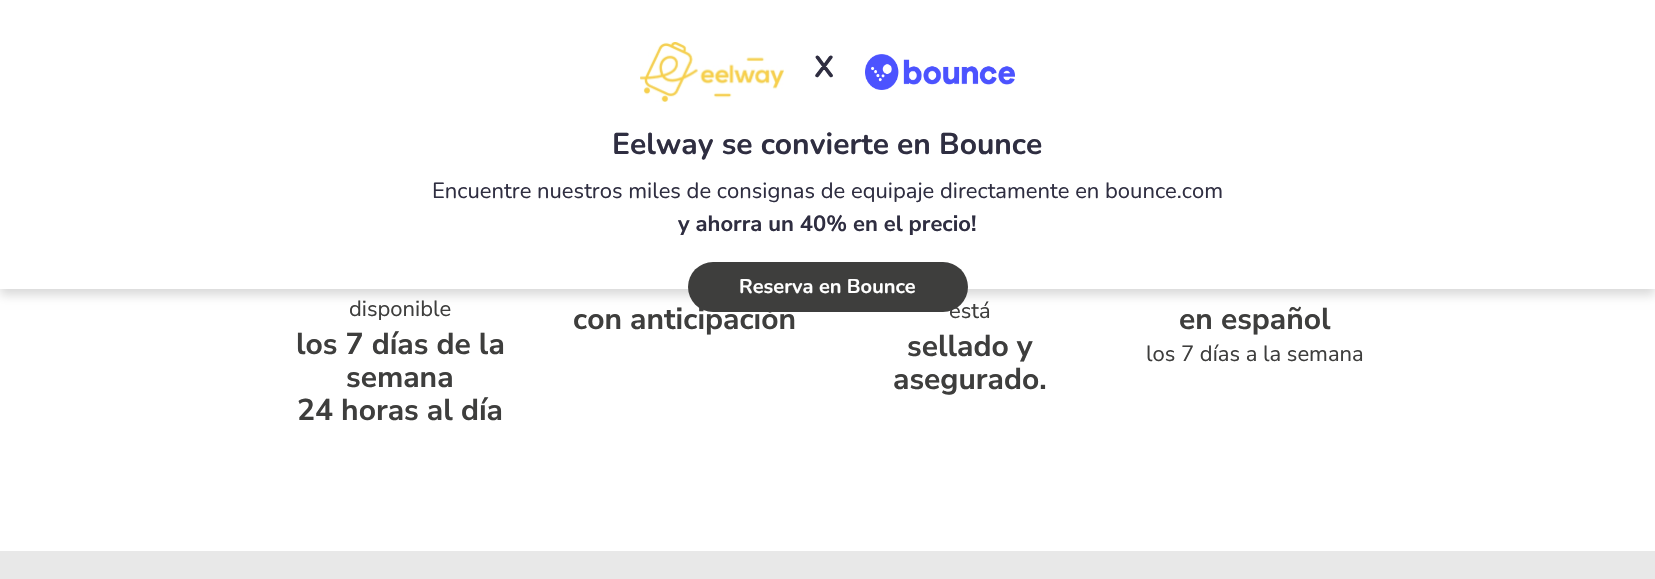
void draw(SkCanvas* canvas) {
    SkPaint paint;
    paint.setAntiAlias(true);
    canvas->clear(0xFFFFFFFF);
    paint.setColor(0x26000000);
    paint.setMaskFilter(SkMaskFilter::MakeBlur(kNormal_SkBlurStyle, 5));
    canvas->drawRect(SkRect::MakeXYWH(0, 6, 1655, 289), paint);
    paint.setMaskFilter(nullptr);
    paint.setColor(0xFFFFFFFF);
    canvas->drawRect(SkRect::MakeXYWH(0, 0, 1655, 289), paint);
    canvas->drawImageRect(SkImages::DeferredFromEncodedData(SkData::MakeFromFileName("img1.png")), SkRect::MakeXYWH(640, 42, 144, 60), SkSamplingOptions());
    SkFont font1(fontMgr->matchFamilyStyle("Nunito", SkFontStyle::Bold()), 30);
    font1.setSubpixel(true);
    paint.setColor(0xFF2F2E41);
    canvas->drawString("X", 814, 77, font1, paint);
    canvas->drawImageRect(SkImages::DeferredFromEncodedData(SkData::MakeFromFileName("img2.png")), SkRect::MakeXYWH(865, 54, 150, 36), SkSamplingOptions());
    canvas->drawString("Eelway se convierte en Bounce", 612, 154, font1, paint);
    SkFont font2(fontMgr->matchFamilyStyle("Nunito", SkFontStyle::Normal()), 22);
    font2.setSubpixel(true);
    canvas->drawString("Encuentre nuestros miles de consignas de equipaje directamente en", 432, 198, font2, paint);
    SkFont font3(fontMgr->matchFamilyStyle("Nunito Sans", SkFontStyle::Normal()), 22);
    font3.setSubpixel(true);
    canvas->drawString("bounce.com", 1105, 198, font3, paint);
    SkFont font4(fontMgr->matchFamilyStyle("Nunito Sans", SkFontStyle::Bold()), 22);
    font4.setSubpixel(true);
    canvas->drawString("y ahorra un 40% en el precio!", 678, 231, font4, paint);
    paint.setColor(0xFF3E3E3D);
    canvas->drawRoundRect(SkRect::MakeXYWH(688, 262, 280, 50), 25, 25, paint);
    SkFont font5(fontMgr->matchFamilyStyle("Nunito", SkFontStyle::Bold()), 20);
    font5.setSubpixel(true);
    paint.setColor(0xFFFFFFFF);
    canvas->drawString("Reserva en Bounce", 739, 293, font5, paint);
    paint.setColor(0xFF3E3E3D);
    canvas->drawString("disponible", 349, 316, font3, paint);
    SkFont font6(fontMgr->matchFamilyStyle("Nunito Sans", SkFontStyle::Bold()), 30);
    font6.setSubpixel(true);
    canvas->drawString("los 7 días de la", 296, 354, font6, paint);
    canvas->drawString("semana", 346, 387, font6, paint);
    canvas->drawString("24 horas al día", 297, 420, font6, paint);
    canvas->drawString("con anticipación", 573, 329, font6, paint);
    canvas->drawString("está", 949, 318, font3, paint);
    canvas->drawString("sellado y", 907, 356, font6, paint);
    canvas->drawString("asegurado.", 893, 389, font6, paint);
    canvas->drawString("en español", 1179, 329, font6, paint);
    canvas->drawString("los 7 días a la semana", 1146, 361, font3, paint);
    paint.setColor(0xFFE8E8E8);
    canvas->drawRect(SkRect::MakeXYWH(0, 551, 1655, 28), paint);
}
